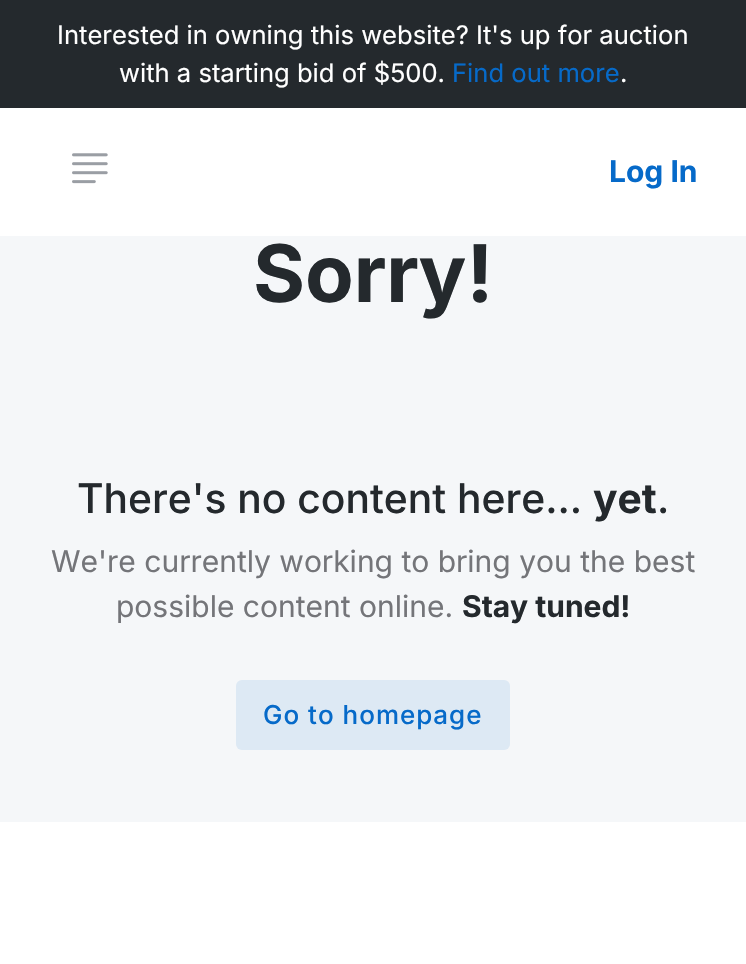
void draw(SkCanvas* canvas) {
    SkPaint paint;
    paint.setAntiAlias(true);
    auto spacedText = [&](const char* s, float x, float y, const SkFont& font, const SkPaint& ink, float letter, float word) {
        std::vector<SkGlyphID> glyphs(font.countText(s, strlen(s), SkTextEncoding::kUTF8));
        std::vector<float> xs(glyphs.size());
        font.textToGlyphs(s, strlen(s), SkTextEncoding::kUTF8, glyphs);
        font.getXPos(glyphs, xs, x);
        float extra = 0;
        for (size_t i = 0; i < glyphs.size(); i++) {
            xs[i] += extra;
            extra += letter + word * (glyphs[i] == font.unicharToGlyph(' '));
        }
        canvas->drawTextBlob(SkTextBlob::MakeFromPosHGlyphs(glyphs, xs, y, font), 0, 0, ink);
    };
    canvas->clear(0xFFFFFFFF);
    paint.setColor(0xFF24292D);
    canvas->drawRect(SkRect::MakeXYWH(0, 0, 746, 108), paint);
    SkFont font1(fontMgr->matchFamilyStyle("Inter", SkFontStyle::Normal()), 25.6f);
    font1.setSubpixel(true);
    paint.setColor(0xFFFFFFFF);
    canvas->drawString("Interested in owning this website? It's up for auction", 57, 44, font1, paint);
    canvas->drawString("with a starting bid of $500.", 119, 82, font1, paint);
    paint.setColor(0xFF066AC9);
    canvas->drawString("Find out more", 452, 82, font1, paint);
    paint.setColor(0xFFFFFFFF);
    canvas->drawString(".", 620, 82, font1, paint);
    canvas->drawImageRect(SkImages::DeferredFromEncodedData(SkData::MakeFromFileName("img1.png")), SkRect::MakeXYWH(72, 153, 36, 31), SkSamplingOptions());
    SkFont font2(fontMgr->matchFamilyStyle("Inter", SkFontStyle::Bold()), 30);
    font2.setSubpixel(true);
    paint.setColor(0xFF066AC9);
    canvas->drawString("Log In", 609, 182, font2, paint);
    paint.setColor(0xFFF5F7F9);
    canvas->drawRect(SkRect::MakeXYWH(0, 236, 746, 586), paint);
    SkFont font3(fontMgr->matchFamilyStyle("Inter", SkFontStyle::Bold()), 79.5f);
    font3.setSubpixel(true);
    paint.setColor(0xFF24292D);
    canvas->drawString("Sorry!", 253, 302, font3, paint);
    SkFont font4(fontMgr->matchFamilyStyle("Inter", SkFontStyle(500, SkFontStyle::kNormal_Width, SkFontStyle::kUpright_Slant)), 40.75f);
    font4.setSubpixel(true);
    canvas->drawString("There's no content here...", 77, 513, font4, paint);
    SkFont font5(fontMgr->matchFamilyStyle("Inter", SkFontStyle::Bold()), 40.75f);
    font5.setSubpixel(true);
    canvas->drawString("yet", 593, 513, font5, paint);
    canvas->drawString(".", 657, 513, font4, paint);
    SkFont font6(fontMgr->matchFamilyStyle("Inter", SkFontStyle::Normal()), 30);
    font6.setSubpixel(true);
    paint.setColor(0xFF747579);
    canvas->drawString("We're currently working to bring you the best", 51, 572, font6, paint);
    canvas->drawString("possible content online.", 116, 617, font6, paint);
    paint.setColor(0xFF24292D);
    canvas->drawString("Stay tuned!", 462, 617, font2, paint);
    paint.setColor(0xFFDDE9F4);
    canvas->drawRoundRect(SkRect::MakeXYWH(236, 680, 274, 70), 6, 6, paint);
    SkFont font7(fontMgr->matchFamilyStyle("Inter", SkFontStyle(500, SkFontStyle::kNormal_Width, SkFontStyle::kUpright_Slant)), 26);
    font7.setSubpixel(true);
    paint.setColor(0xFF066AC9);
    spacedText("Go to homepage", 263, 724, font7, paint, 1, 0);
}
